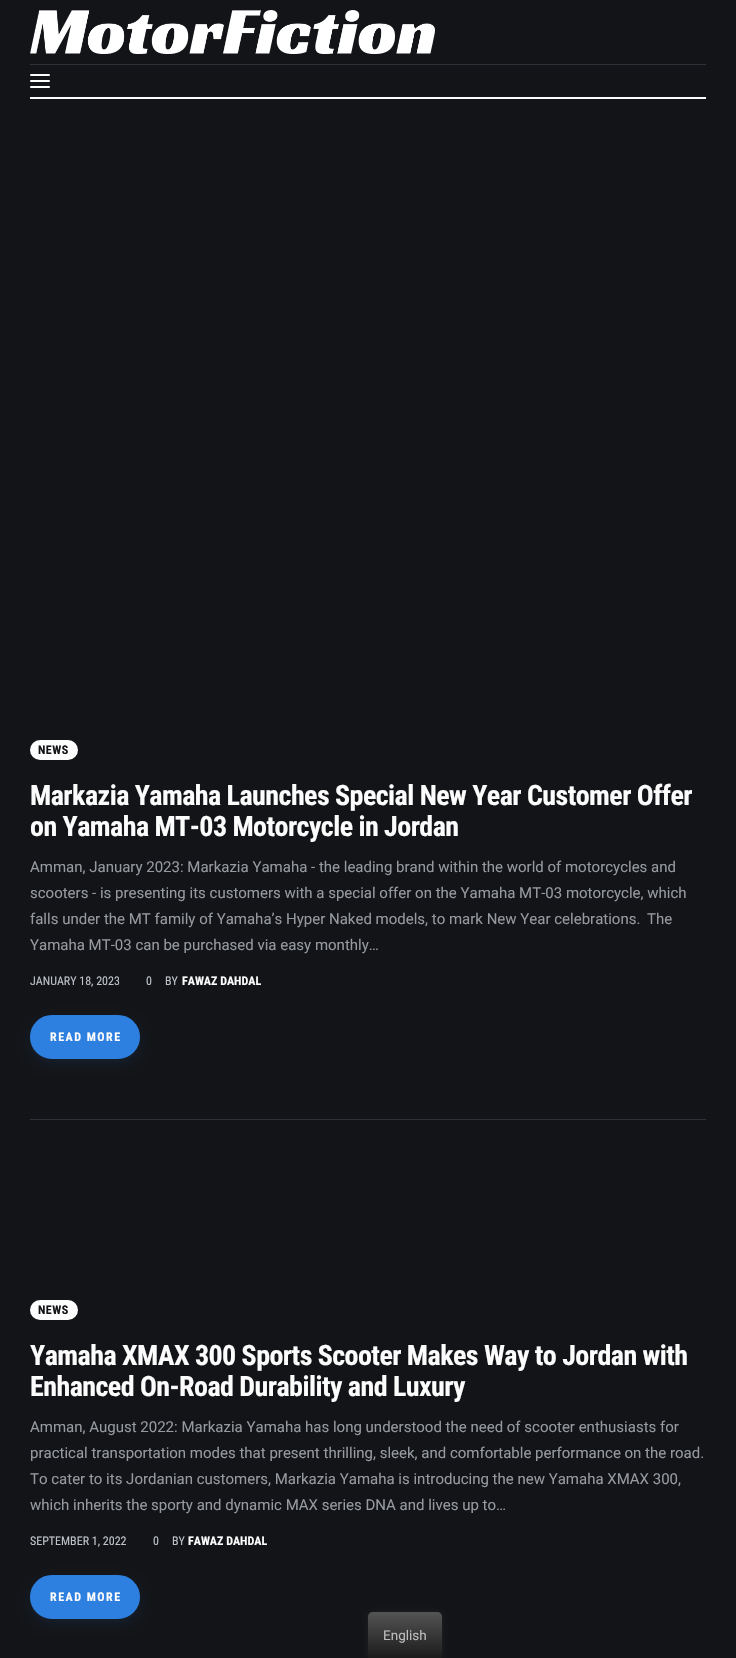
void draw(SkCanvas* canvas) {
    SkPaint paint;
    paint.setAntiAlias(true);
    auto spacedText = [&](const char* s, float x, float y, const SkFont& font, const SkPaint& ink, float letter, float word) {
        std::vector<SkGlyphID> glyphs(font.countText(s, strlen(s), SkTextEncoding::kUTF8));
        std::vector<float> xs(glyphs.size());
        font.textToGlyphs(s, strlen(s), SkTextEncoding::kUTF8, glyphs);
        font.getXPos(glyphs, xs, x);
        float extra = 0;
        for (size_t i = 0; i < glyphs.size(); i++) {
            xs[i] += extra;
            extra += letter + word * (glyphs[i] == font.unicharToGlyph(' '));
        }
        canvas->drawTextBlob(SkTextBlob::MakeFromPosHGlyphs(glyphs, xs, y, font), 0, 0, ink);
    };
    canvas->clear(0xFF121418);
    canvas->drawImageRect(SkImages::DeferredFromEncodedData(SkData::MakeFromFileName("img1.png")), SkRect::MakeXYWH(30, 10, 405, 44), SkSamplingOptions());
    paint.setColor(0xFF2D3036);
    canvas->drawRect(SkRect::MakeXYWH(30, 64, 676, 1), paint);
    paint.setColor(0xFFFCFCFC);
    canvas->drawRoundRect(SkRect::MakeXYWH(30, 74, 20, 2), 1, 1, paint);
    canvas->drawRoundRect(SkRect::MakeXYWH(30, 80, 20, 2), 1, 1, paint);
    canvas->drawRoundRect(SkRect::MakeXYWH(30, 86, 20, 2), 1, 1, paint);
    canvas->drawRect(SkRect::MakeXYWH(30, 97, 676, 2), paint);
    canvas->drawRoundRect(SkRect::MakeXYWH(30, 740, 48, 20), 10, 10, paint);
    SkFont font1(fontMgr->matchFamilyStyle("Roboto Condensed", SkFontStyle::Bold()), 12);
    font1.setSubpixel(true);
    paint.setColor(0xFF121418);
    spacedText("NEWS", 38, 754, font1, paint, 0.5f, 0);
    SkFont font2(fontMgr->matchFamilyStyle("Roboto Condensed", SkFontStyle::Bold()), 28);
    font2.setSubpixel(true);
    paint.setColor(0xFFFCFCFC);
    spacedText("Markazia Yamaha Launches Special New Year Customer Offer", 30, 805, font2, paint, -0.55f, 0);
    spacedText("on Yamaha MT-03 Motorcycle in Jordan", 30, 836, font2, paint, -0.55f, 0);
    SkFont font3(fontMgr->matchFamilyStyle("Roboto", SkFontStyle::Normal()), 15);
    font3.setSubpixel(true);
    paint.setColor(0xFF96999F);
    canvas->drawString("Amman, January 2023: Markazia Yamaha - the leading brand within the world of motorcycles and", 30, 872, font3, paint);
    canvas->drawString("scooters - is presenting its customers with a special offer on the Yamaha MT-03 motorcycle, which", 30, 898, font3, paint);
    canvas->drawString("falls under the MT family of Yamaha’s Hyper Naked models, to mark New Year celebrations.", 30, 924, font3, paint);
    canvas->drawString("The", 647, 924, font3, paint);
    canvas->drawString("Yamaha MT-03 can be purchased via easy monthly…", 30, 950, font3, paint);
    SkFont font4(fontMgr->matchFamilyStyle("Roboto Condensed", SkFontStyle::Normal()), 12);
    font4.setSubpixel(true);
    paint.setColor(0xFFBFC2C9);
    canvas->drawString("JANUARY 18, 2023", 30, 985, font4, paint);
    canvas->drawString("0", 146, 985, font4, paint);
    canvas->drawString("BY", 165, 985, font4, paint);
    paint.setColor(0xFFFCFCFC);
    canvas->drawString("FAWAZ DAHDAL", 182, 985, font1, paint);
    paint.setColor(0x1A2D7FE0);
    paint.setMaskFilter(SkMaskFilter::MakeBlur(kNormal_SkBlurStyle, 6));
    canvas->drawRoundRect(SkRect::MakeXYWH(30, 1020, 110, 44), 22, 22, paint);
    paint.setMaskFilter(nullptr);
    paint.setColor(0xFF2D7FE0);
    canvas->drawRoundRect(SkRect::MakeXYWH(31, 1016, 108, 42), 21, 21, paint);
    paint.setStyle(SkPaint::kStroke_Style);
    paint.setStrokeWidth(2);
    canvas->drawRoundRect(SkRect::MakeXYWH(31, 1016, 108, 42), 21, 21, paint);
    paint.setStyle(SkPaint::kFill_Style);
    paint.setColor(0xFFFCFCFC);
    spacedText("READ MORE", 50, 1041, font1, paint, 1.5f, 0);
    paint.setColor(0xFF2D3036);
    canvas->drawRect(SkRect::MakeXYWH(30, 1119, 676, 1), paint);
    paint.setColor(0xFFFCFCFC);
    canvas->drawRoundRect(SkRect::MakeXYWH(30, 1300, 48, 20), 10, 10, paint);
    paint.setColor(0xFF121418);
    spacedText("NEWS", 38, 1314, font1, paint, 0.5f, 0);
    paint.setColor(0xFFFCFCFC);
    spacedText("Yamaha XMAX 300 Sports Scooter Makes Way to Jordan with", 30, 1365, font2, paint, -0.55f, 0);
    spacedText("Enhanced On-Road Durability and Luxury", 30, 1396, font2, paint, -0.55f, 0);
    paint.setColor(0xFF96999F);
    canvas->drawString("Amman, August 2022: Markazia Yamaha has long understood the need of scooter enthusiasts for", 30, 1432, font3, paint);
    canvas->drawString("practical transportation modes that present thrilling, sleek, and comfortable performance on the road.", 30, 1458, font3, paint);
    canvas->drawString("To cater to its Jordanian customers, Markazia Yamaha is introducing the new Yamaha XMAX 300,", 30, 1484, font3, paint);
    canvas->drawString("which inherits the sporty and dynamic MAX series DNA and lives up to…", 30, 1510, font3, paint);
    paint.setColor(0xFFBFC2C9);
    canvas->drawString("SEPTEMBER 1, 2022", 30, 1545, font4, paint);
    canvas->drawString("0", 153, 1545, font4, paint);
    canvas->drawString("BY", 172, 1545, font4, paint);
    paint.setColor(0xFFFCFCFC);
    canvas->drawString("FAWAZ DAHDAL", 188, 1545, font1, paint);
    paint.setColor(0x1A2D7FE0);
    paint.setMaskFilter(SkMaskFilter::MakeBlur(kNormal_SkBlurStyle, 6));
    canvas->drawRoundRect(SkRect::MakeXYWH(30, 1580, 110, 44), 22, 22, paint);
    paint.setMaskFilter(nullptr);
    paint.setColor(0xFF2D7FE0);
    canvas->drawRoundRect(SkRect::MakeXYWH(31, 1576, 108, 42), 21, 21, paint);
    paint.setStyle(SkPaint::kStroke_Style);
    canvas->drawRoundRect(SkRect::MakeXYWH(31, 1576, 108, 42), 21, 21, paint);
    paint.setStyle(SkPaint::kFill_Style);
    paint.setColor(0xFFFCFCFC);
    spacedText("READ MORE", 50, 1601, font1, paint, 1.5f, 0);
    paint.setColor(0xFF212121);
    paint.setMaskFilter(SkMaskFilter::MakeBlur(kNormal_SkBlurStyle, 2.5f));
    canvas->drawRoundRect(SkRect::MakeXYWH(368, 1612, 74, 46), 5, 5, paint);
    paint.setMaskFilter(nullptr);
    {
        const SkColor colors[] = {0xFF1B1B1B, 0xFF545454};
        const float stops[] = {0, 1};
        const SkPoint ends[] = {{405, 1658}, {405, 1612}};
        paint.setShader(SkGradientShader::MakeLinear(ends, colors, stops, 2, SkTileMode::kClamp));
        paint.setAlpha(255);
    }
    canvas->drawPath(SkPathBuilder().moveTo(373, 1612).lineTo(437, 1612).cubicTo(440, 1612, 442, 1614, 442, 1617).lineTo(442, 1658).lineTo(368, 1658).lineTo(368, 1617).cubicTo(368, 1614, 370, 1612, 373, 1612).close().detach(), paint);
    SkFont font5(fontMgr->matchFamilyStyle("Roboto", SkFontStyle::Normal()), 13.5f);
    font5.setSubpixel(true);
    paint.setShader(nullptr);
    paint.setColor(0xFFBDBDBD);
    canvas->drawString("English", 383, 1640, font5, paint);
}
